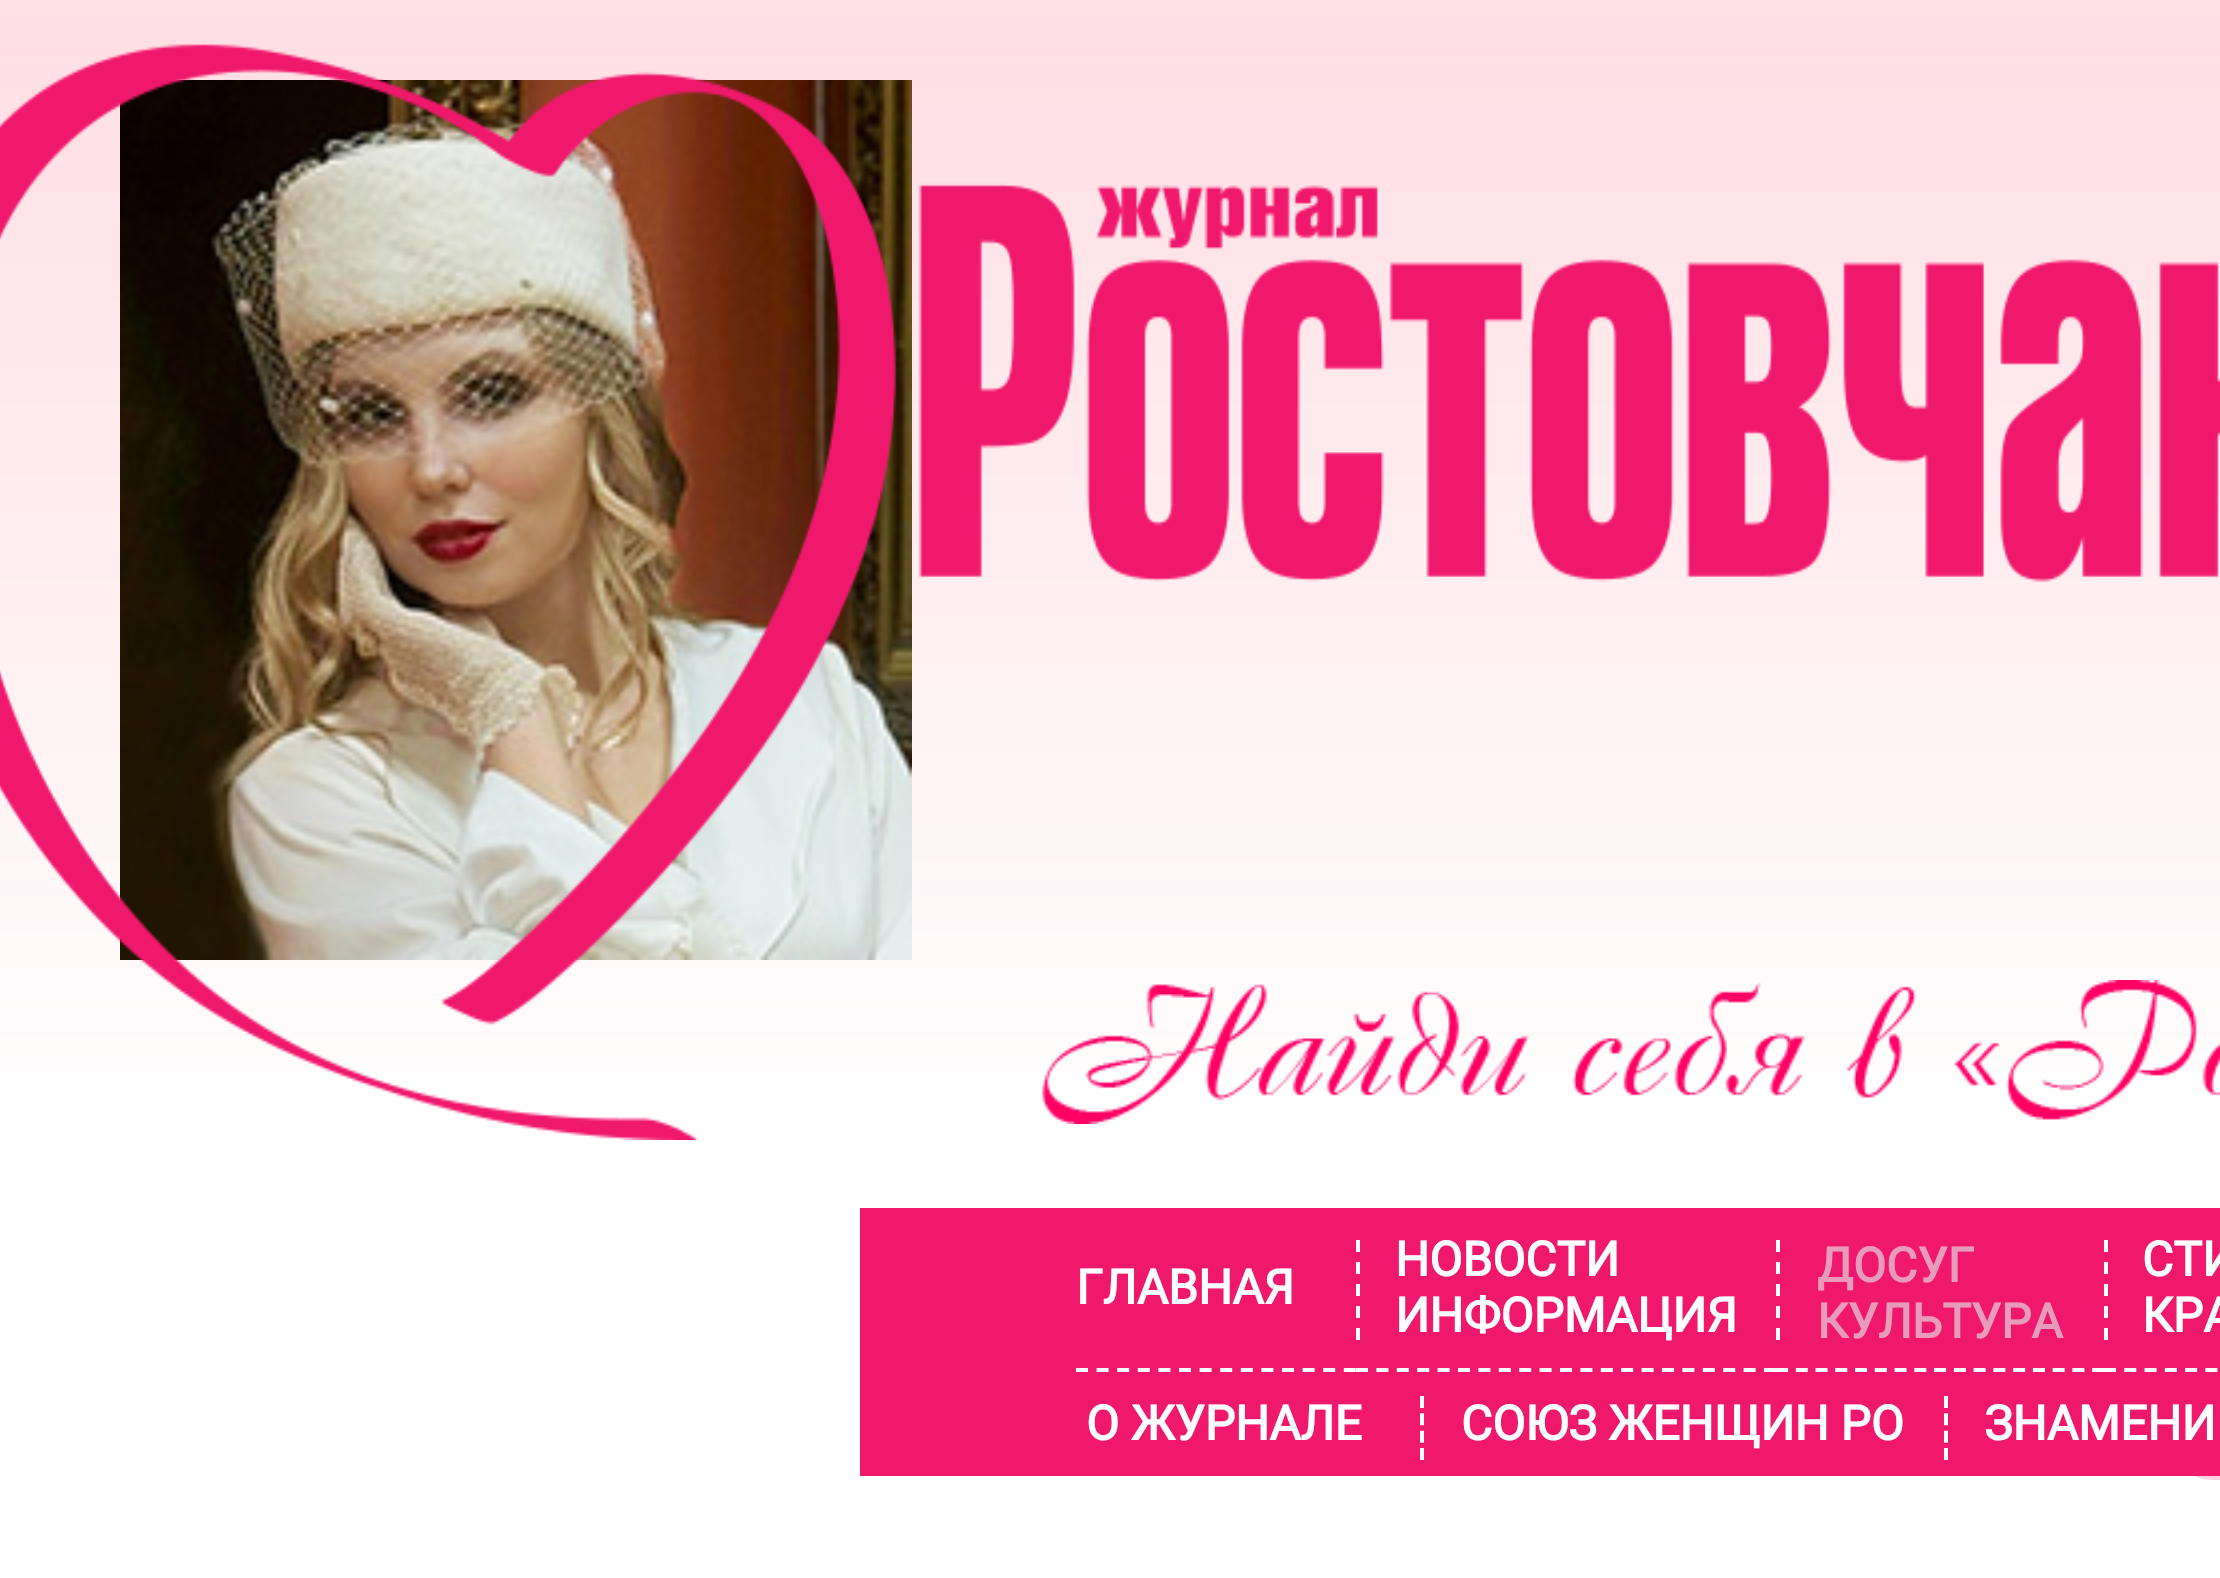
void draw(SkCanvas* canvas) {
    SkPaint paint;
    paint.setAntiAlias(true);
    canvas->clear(0xFFFFFFFF);
    {
        const SkColor colors[] = {0xFFFFDEE4, 0xFFFFFFFF};
        const float stops[] = {0, 1};
        const SkPoint ends[] = {{2000, 0}, {2000, 1160}};
        paint.setShader(SkGradientShader::MakeLinear(ends, colors, stops, 2, SkTileMode::kClamp));
        paint.setAlpha(255);
    }
    canvas->drawRect(SkRect::MakeXYWH(0, 0, 2220, 1072), paint);
    canvas->drawImageRect(SkImages::DeferredFromEncodedData(SkData::MakeFromFileName("img2.png")), SkRect::MakeXYWH(1041, 980, 1179, 144), SkSamplingOptions());
    canvas->drawImageRect(SkImages::DeferredFromEncodedData(SkData::MakeFromFileName("img3.png")), SkRect::MakeXYWH(120, 80, 792, 880), SkSamplingOptions());
    canvas->drawImageRect(SkImages::DeferredFromEncodedData(SkData::MakeFromFileName("img1.png")), SkRect::MakeXYWH(0, 44, 2220, 1096), SkSamplingOptions());
    paint.setStyle(SkPaint::kStroke_Style);
    paint.setStrokeWidth(4);
    paint.setShader(nullptr);
    paint.setColor(0xFFFCD1E2);
    canvas->drawRoundRect(SkRect::MakeXYWH(2174, 1358, 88, 120), 38, 38, paint);
    paint.setStyle(SkPaint::kFill_Style);
    paint.setColor(0xFFF0186D);
    canvas->drawRect(SkRect::MakeXYWH(860, 1208, 1360, 268), paint);
    paint.setStyle(SkPaint::kStroke_Style);
    paint.setColor(0xFFFFFFFF);
    paint.setPathEffect(SkDashPathEffect::Make({{12, 8.6f}}, 0));
    canvas->drawPath(SkPathBuilder().moveTo(1076, 1370).lineTo(1356, 1370).detach(), paint);
    paint.setPathEffect(nullptr);
    SkFont font1(fontMgr->matchFamilyStyle("Roboto", SkFontStyle::Bold()), 48);
    font1.setSubpixel(true);
    paint.setStyle(SkPaint::kFill_Style);
    canvas->drawString("ГЛАВНАЯ", 1076, 1304, font1, paint);
    paint.setStyle(SkPaint::kStroke_Style);
    paint.setPathEffect(SkDashPathEffect::Make({{12, 10}}, 0));
    canvas->drawPath(SkPathBuilder().moveTo(1358, 1240).lineTo(1358, 1340).detach(), paint);
    paint.setPathEffect(nullptr);
    paint.setPathEffect(SkDashPathEffect::Make({{12, 8.4f}}, 0));
    canvas->drawPath(SkPathBuilder().moveTo(1356, 1370).lineTo(1776, 1370).detach(), paint);
    paint.setPathEffect(nullptr);
    paint.setStyle(SkPaint::kFill_Style);
    canvas->drawString("НОВОСТИ", 1395, 1276, font1, paint);
    paint.setStyle(SkPaint::kStroke_Style);
    paint.setPathEffect(SkDashPathEffect::Make({{12, 10}}, 0));
    canvas->drawPath(SkPathBuilder().moveTo(1778, 1240).lineTo(1778, 1340).detach(), paint);
    paint.setPathEffect(nullptr);
    paint.setStyle(SkPaint::kFill_Style);
    canvas->drawString("ИНФОРМАЦИЯ", 1395, 1332, font1, paint);
    paint.setStyle(SkPaint::kStroke_Style);
    paint.setPathEffect(SkDashPathEffect::Make({{12, 7.76f}}, 0));
    canvas->drawPath(SkPathBuilder().moveTo(1776, 1370).lineTo(2104, 1370).detach(), paint);
    paint.setPathEffect(nullptr);
    paint.setStyle(SkPaint::kFill_Style);
    paint.setColor(0xFFE89BBA);
    canvas->drawString("ДОСУГ", 1817, 1282, font1, paint);
    paint.setStyle(SkPaint::kStroke_Style);
    paint.setColor(0xFFFFFFFF);
    paint.setPathEffect(SkDashPathEffect::Make({{12, 10}}, 0));
    canvas->drawPath(SkPathBuilder().moveTo(2106, 1240).lineTo(2106, 1340).detach(), paint);
    paint.setPathEffect(nullptr);
    paint.setStyle(SkPaint::kFill_Style);
    paint.setColor(0xFFE89BBA);
    canvas->drawString("КУЛЬТУРА", 1817, 1338, font1, paint);
    paint.setStyle(SkPaint::kStroke_Style);
    paint.setColor(0xFFFFFFFF);
    paint.setPathEffect(SkDashPathEffect::Make({{12, 8.28f}}, 0));
    canvas->drawPath(SkPathBuilder().moveTo(2104, 1370).lineTo(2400, 1370).detach(), paint);
    paint.setPathEffect(nullptr);
    paint.setStyle(SkPaint::kFill_Style);
    canvas->drawString("СТИ", 2142, 1276, font1, paint);
    canvas->drawString("КРА", 2142, 1332, font1, paint);
    canvas->drawString("О ЖУРНАЛЕ", 1086, 1440, font1, paint);
    paint.setStyle(SkPaint::kStroke_Style);
    paint.setPathEffect(SkDashPathEffect::Make({{12, 5.32f}}, 0));
    canvas->drawPath(SkPathBuilder().moveTo(1422, 1396).lineTo(1422, 1460).detach(), paint);
    paint.setPathEffect(nullptr);
    paint.setStyle(SkPaint::kFill_Style);
    canvas->drawString("СОЮЗ ЖЕНЩИН РО", 1461, 1440, font1, paint);
    paint.setStyle(SkPaint::kStroke_Style);
    paint.setPathEffect(SkDashPathEffect::Make({{12, 5.32f}}, 0));
    canvas->drawPath(SkPathBuilder().moveTo(1946, 1396).lineTo(1946, 1460).detach(), paint);
    paint.setPathEffect(nullptr);
    paint.setStyle(SkPaint::kFill_Style);
    canvas->drawString("ЗНАМЕНИ", 1984, 1440, font1, paint);
}
